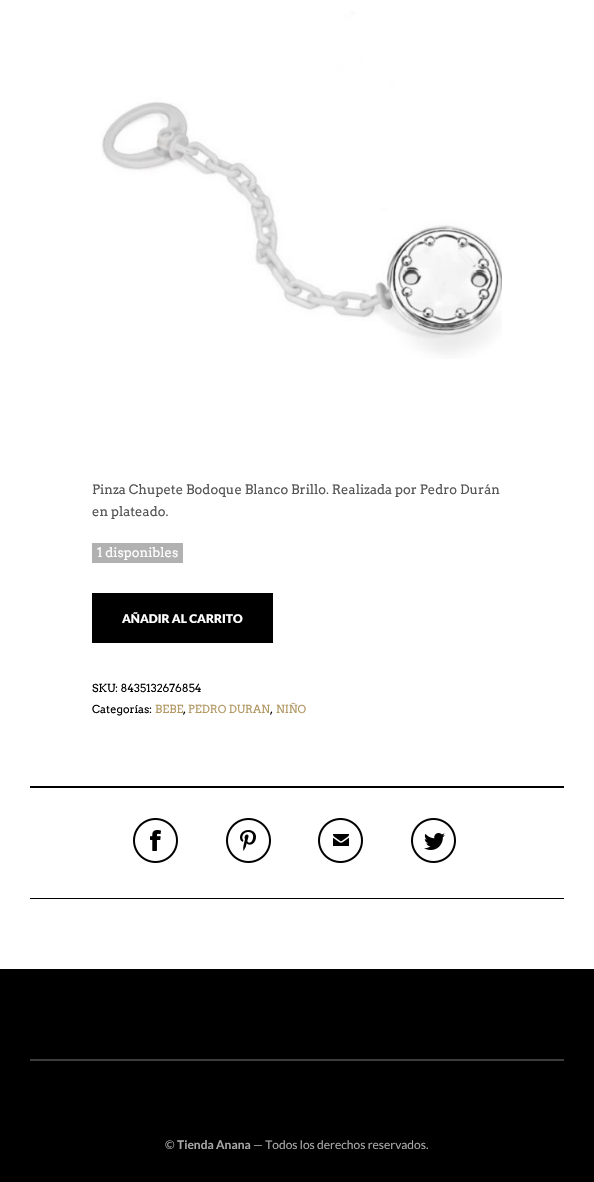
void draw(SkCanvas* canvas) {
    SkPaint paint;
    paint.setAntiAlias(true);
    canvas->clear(0xFFFFFFFF);
    canvas->drawImageRect(SkImages::DeferredFromEncodedData(SkData::MakeFromFileName("img1.png")), SkRect::MakeXYWH(100, 11, 402, 348), SkSamplingOptions());
    SkFont font1(fontMgr->matchFamilyStyle("Arvo", SkFontStyle::Normal()), 13);
    font1.setSubpixel(true);
    paint.setColor(0xFF555555);
    canvas->drawString("Pinza Chupete Bodoque Blanco Brillo. Realizada por Pedro Durán", 92, 494, font1, paint);
    canvas->drawString("en plateado.", 92, 516, font1, paint);
    paint.setColor(0xFFB1B1B1);
    canvas->drawRect(SkRect::MakeXYWH(92, 543, 91, 20), paint);
    paint.setColor(0xFFFFFFFF);
    canvas->drawString("1 disponibles", 97, 557, font1, paint);
    paint.setColor(0xFF000000);
    canvas->drawRect(SkRect::MakeXYWH(92, 593, 181, 50), paint);
    SkFont font2(fontMgr->matchFamilyStyle("Lato", SkFontStyle(900, SkFontStyle::kNormal_Width, SkFontStyle::kUpright_Slant)), 12);
    font2.setSubpixel(true);
    paint.setColor(0xFFFFFFFF);
    canvas->drawString("AÑADIR AL CARRITO", 122, 623, font2, paint);
    SkFont font3(fontMgr->matchFamilyStyle("Arvo", SkFontStyle::Normal()), 11);
    font3.setSubpixel(true);
    paint.setColor(0xFF000000);
    canvas->drawString("SKU: 8435132676854", 92, 692, font3, paint);
    canvas->drawString("Categorías:", 92, 713, font3, paint);
    paint.setColor(0xFFB39964);
    canvas->drawString("BEBE", 155, 713, font3, paint);
    paint.setColor(0xFF000000);
    canvas->drawString(",", 183, 713, font3, paint);
    paint.setColor(0xFFB39964);
    canvas->drawString("PEDRO DURAN", 188, 713, font3, paint);
    paint.setColor(0xFF000000);
    canvas->drawString(",", 270, 713, font3, paint);
    paint.setColor(0xFFB39964);
    canvas->drawString("NIÑO", 276, 713, font3, paint);
    paint.setColor(0xFF000000);
    canvas->drawRect(SkRect::MakeXYWH(30, 786, 534, 2), paint);
    canvas->drawRect(SkRect::MakeXYWH(30, 898, 534, 1), paint);
    canvas->drawImageRect(SkImages::DeferredFromEncodedData(SkData::MakeFromFileName("img2.png")), SkRect::MakeXYWH(133, 818, 45, 45), SkSamplingOptions());
    canvas->drawImageRect(SkImages::DeferredFromEncodedData(SkData::MakeFromFileName("img3.png")), SkRect::MakeXYWH(226, 818, 45, 45), SkSamplingOptions());
    canvas->drawImageRect(SkImages::DeferredFromEncodedData(SkData::MakeFromFileName("img4.png")), SkRect::MakeXYWH(318, 818, 45, 45), SkSamplingOptions());
    canvas->drawImageRect(SkImages::DeferredFromEncodedData(SkData::MakeFromFileName("img5.png")), SkRect::MakeXYWH(411, 818, 45, 45), SkSamplingOptions());
    canvas->drawRect(SkRect::MakeXYWH(0, 969, 594, 213), paint);
    paint.setColor(0xFF3D3D3D);
    canvas->drawRect(SkRect::MakeXYWH(30, 1059, 534, 2), paint);
    SkFont font4(fontMgr->matchFamilyStyle("Lato", SkFontStyle::Normal()), 12);
    font4.setSubpixel(true);
    paint.setColor(0xFFA8A8A8);
    canvas->drawString("©", 165, 1149, font4, paint);
    SkFont font5(fontMgr->matchFamilyStyle("Lato", SkFontStyle::Bold()), 12);
    font5.setSubpixel(true);
    canvas->drawString("Tienda Anana", 177, 1149, font5, paint);
    canvas->drawString("— Todos los derechos reservados.", 253, 1149, font4, paint);
}
